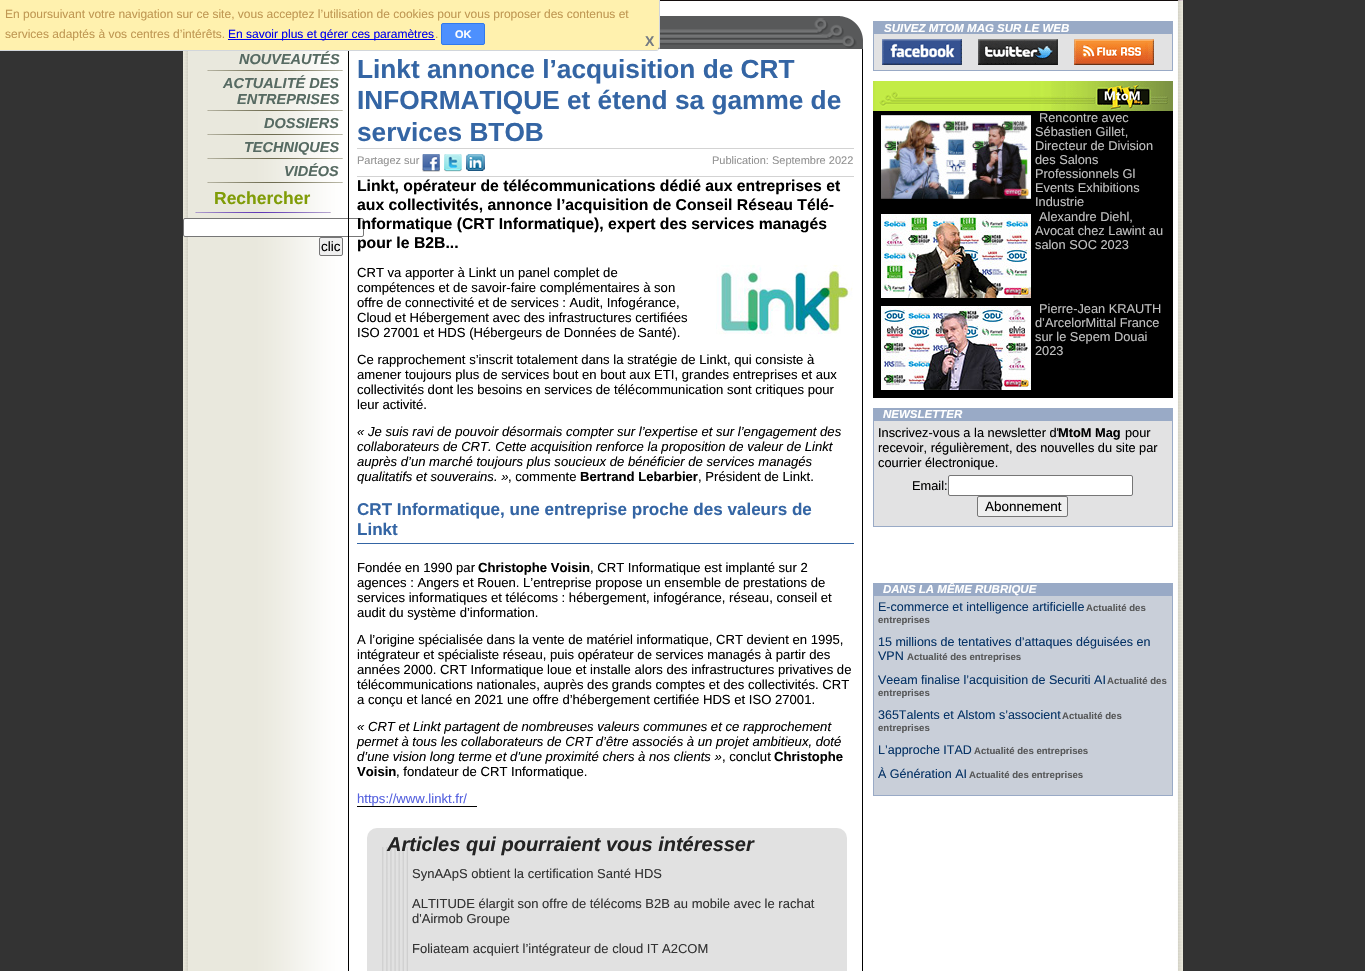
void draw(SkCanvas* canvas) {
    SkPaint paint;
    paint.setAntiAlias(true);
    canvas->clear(0xFF333333);
    canvas->drawImageRect(SkImages::DeferredFromEncodedData(SkData::MakeFromFileName("img1.png")), SkRect::MakeXYWH(660, 0, 523, 1), SkSamplingOptions());
    canvas->drawImageRect(SkImages::DeferredFromEncodedData(SkData::MakeFromFileName("img2.png")), SkRect::MakeXYWH(183, 1, 1000, 970), SkSamplingOptions());
    canvas->drawImageRect(SkImages::DeferredFromEncodedData(SkData::MakeFromFileName("img5.png")), SkRect::MakeXYWH(658, 16, 205, 33), SkSamplingOptions());
    paint.setColor(0xFFFFFFFF);
    canvas->drawRoundRect(SkRect::MakeXYWH(183.5f, 218.5f, 180, 18), 1.5f, 1.5f, paint);
    paint.setStyle(SkPaint::kStroke_Style);
    paint.setStrokeWidth(1);
    paint.setColor(0xFF767676);
    canvas->drawRoundRect(SkRect::MakeXYWH(183.5f, 218.5f, 180, 18), 1.5f, 1.5f, paint);
    paint.setStyle(SkPaint::kFill_Style);
    paint.setColor(0xFF000000);
    canvas->drawRect(SkRect::MakeXYWH(348, 49, 1, 922), paint);
    paint.setColor(0xFFFFF1AE);
    canvas->drawPath(SkPathBuilder().moveTo(0, 0).lineTo(659, 0).lineTo(659, 47).cubicTo(659, 48.5f, 657.5f, 50, 656, 50).lineTo(0, 50).close().detach(), paint);
    paint.setColor(0xFFD2D6DB);
    canvas->drawPath(SkPathBuilder(SkPathFillType::kEvenOdd).moveTo(0, 0).lineTo(660, 0).lineTo(660, 47).cubicTo(660, 49, 658, 51, 656, 51).lineTo(0, 51).close().moveTo(0, 0).lineTo(659, 0).lineTo(659, 47).cubicTo(659, 49, 658, 50, 656, 50).lineTo(0, 50).close().detach(), paint);
    SkFont font1(fontMgr->matchFamilyStyle("Liberation Sans", SkFontStyle::Normal()), 12);
    font1.setSubpixel(true);
    paint.setColor(0xFFC09853);
    canvas->drawString("En poursuivant votre navigation sur ce site, vous acceptez l’utilisation de cookies pour vous proposer des contenus et", 5, 18, font1, paint);
    canvas->drawString("services adaptés à vos centres d’intérêts.", 5, 38, font1, paint);
    paint.setColor(0xFF0000EE);
    canvas->drawRect(SkRect::MakeXYWH(228, 39, 207, 1), paint);
    canvas->drawString("En savoir plus et gérer ces paramètres", 228, 38, font1, paint);
    paint.setColor(0xFFC09853);
    canvas->drawString(".", 435, 38, font1, paint);
    paint.setColor(0xFF4D90FE);
    canvas->drawRoundRect(SkRect::MakeXYWH(441.5f, 23.5f, 43, 21), 1.5f, 1.5f, paint);
    paint.setStyle(SkPaint::kStroke_Style);
    paint.setColor(0xFF3079ED);
    canvas->drawRoundRect(SkRect::MakeXYWH(441.5f, 23.5f, 43, 21), 1.5f, 1.5f, paint);
    SkFont font2(fontMgr->matchFamilyStyle("Liberation Sans", SkFontStyle::Bold()), 11);
    font2.setSubpixel(true);
    paint.setStyle(SkPaint::kFill_Style);
    paint.setColor(0xFFFFFFFF);
    canvas->drawString("OK", 455, 38, font2, paint);
    SkFont font3(fontMgr->matchFamilyStyle("Liberation Sans", SkFontStyle::Bold()), 14);
    font3.setSubpixel(true);
    paint.setColor(0xFF747B83);
    canvas->drawString("X", 645, 46, font3, paint);
    canvas->drawImageRect(SkImages::DeferredFromEncodedData(SkData::MakeFromFileName("img3.png")), SkRect::MakeXYWH(207, 70, 136, 1), SkSamplingOptions());
    SkFont font4(fontMgr->matchFamilyStyle("Liberation Sans", SkFontStyle::BoldItalic()), 14.5f);
    font4.setSubpixel(true);
    paint.setColor(0xFF566A62);
    canvas->drawString("NOUVEAUTÉS", 239, 64, font4, paint);
    canvas->drawImageRect(SkImages::DeferredFromEncodedData(SkData::MakeFromFileName("img3.png")), SkRect::MakeXYWH(207, 110, 136, 1), SkSamplingOptions());
    canvas->drawString("ACTUALITÉ DES", 223, 88, font4, paint);
    canvas->drawString("ENTREPRISES", 237, 104, font4, paint);
    canvas->drawImageRect(SkImages::DeferredFromEncodedData(SkData::MakeFromFileName("img3.png")), SkRect::MakeXYWH(207, 134, 136, 1), SkSamplingOptions());
    canvas->drawString("DOSSIERS", 264, 128, font4, paint);
    canvas->drawImageRect(SkImages::DeferredFromEncodedData(SkData::MakeFromFileName("img3.png")), SkRect::MakeXYWH(207, 158, 136, 1), SkSamplingOptions());
    canvas->drawString("TECHNIQUES", 244, 152, font4, paint);
    canvas->drawImageRect(SkImages::DeferredFromEncodedData(SkData::MakeFromFileName("img3.png")), SkRect::MakeXYWH(207, 182, 136, 1), SkSamplingOptions());
    canvas->drawString("VIDÉOS", 284, 176, font4, paint);
    canvas->drawImageRect(SkImages::DeferredFromEncodedData(SkData::MakeFromFileName("img4.png")), SkRect::MakeXYWH(195, 212, 136, 1), SkSamplingOptions());
    SkFont font5(fontMgr->matchFamilyStyle("Liberation Sans", SkFontStyle::Bold()), 17.5f);
    font5.setSubpixel(true);
    paint.setColor(0xFF809C07);
    canvas->drawString("Rechercher", 214, 204, font5, paint);
    paint.setColor(0xFFEFEFEF);
    canvas->drawRoundRect(SkRect::MakeXYWH(319.5f, 237.5f, 23, 18), 1.5f, 1.5f, paint);
    paint.setStyle(SkPaint::kStroke_Style);
    paint.setColor(0xFF767676);
    canvas->drawRoundRect(SkRect::MakeXYWH(319.5f, 237.5f, 23, 18), 1.5f, 1.5f, paint);
    SkFont font6(fontMgr->matchFamilyStyle("Liberation Sans", SkFontStyle::Normal()), 13.5f);
    font6.setSubpixel(true);
    paint.setStyle(SkPaint::kFill_Style);
    paint.setColor(0xFF000000);
    canvas->drawString("clic", 321, 251, font6, paint);
    canvas->drawRect(SkRect::MakeXYWH(862, 49, 1, 922), paint);
    SkFont font7(fontMgr->matchFamilyStyle("Liberation Sans", SkFontStyle::Bold()), 26.25f);
    font7.setSubpixel(true);
    paint.setColor(0xFF3465A4);
    canvas->drawString("Linkt annonce l’acquisition de CRT", 357, 78, font7, paint);
    canvas->drawString("INFORMATIQUE et étend sa gamme de", 357, 109, font7, paint);
    canvas->drawString("services BTOB", 357, 141, font7, paint);
    paint.setColor(0xFFD3D3D3);
    canvas->drawRect(SkRect::MakeXYWH(357, 148, 497, 1), paint);
    canvas->drawRect(SkRect::MakeXYWH(357, 176, 497, 1), paint);
    SkFont font8(fontMgr->matchFamilyStyle("Liberation Sans", SkFontStyle::Normal()), 11);
    font8.setSubpixel(true);
    paint.setColor(0xFF939393);
    canvas->drawString("Partagez sur", 357, 164, font8, paint);
    canvas->drawImageRect(SkImages::DeferredFromEncodedData(SkData::MakeFromFileName("img6.png")), SkRect::MakeXYWH(422, 154, 18, 18), SkSamplingOptions());
    canvas->drawImageRect(SkImages::DeferredFromEncodedData(SkData::MakeFromFileName("img7.png")), SkRect::MakeXYWH(444, 154, 18, 18), SkSamplingOptions());
    canvas->drawImageRect(SkImages::DeferredFromEncodedData(SkData::MakeFromFileName("img8.png")), SkRect::MakeXYWH(466, 154, 19, 17), SkSamplingOptions());
    canvas->drawString("Publication: Septembre 2022", 712, 164, font8, paint);
    SkFont font9(fontMgr->matchFamilyStyle("Liberation Sans", SkFontStyle::Bold()), 15.75f);
    font9.setSubpixel(true);
    paint.setColor(0xFF000000);
    canvas->drawString("Linkt, opérateur de télécommunications dédié aux entreprises et", 357, 191, font9, paint);
    canvas->drawString("aux collectivités, annonce l’acquisition de Conseil Réseau Télé-", 357, 210, font9, paint);
    canvas->drawString("Informatique (CRT Informatique), expert des services managés", 357, 229, font9, paint);
    canvas->drawString("pour le B2B...", 357, 248, font9, paint);
    SkFont font10(fontMgr->matchFamilyStyle("Liberation Sans", SkFontStyle::Normal()), 13.1f);
    font10.setSubpixel(true);
    canvas->drawString("CRT va apporter à Linkt un panel complet de", 357, 277, font10, paint);
    canvas->drawImageRect(SkImages::DeferredFromEncodedData(SkData::MakeFromFileName("img9.png")), SkRect::MakeXYWH(716, 265, 137, 72), SkSamplingOptions());
    canvas->drawString("compétences et de savoir-faire complémentaires à son", 357, 292, font10, paint);
    canvas->drawString("offre de connectivité et de services : Audit, Infogérance,", 357, 307, font10, paint);
    canvas->drawString("Cloud et Hébergement avec des infrastructures certifiées", 357, 322, font10, paint);
    canvas->drawString("ISO 27001 et HDS (Hébergeurs de Données de Santé).", 357, 337, font10, paint);
    canvas->drawString("Ce rapprochement s’inscrit totalement dans la stratégie de Linkt, qui consiste à", 357, 364, font10, paint);
    canvas->drawString("amener toujours plus de services bout en bout aux ETI, grandes entreprises et aux", 357, 379, font10, paint);
    canvas->drawString("collectivités dont les besoins en services de télécommunication sont critiques pour", 357, 394, font10, paint);
    canvas->drawString("leur activité.", 357, 409, font10, paint);
    SkFont font11(fontMgr->matchFamilyStyle("Liberation Sans", SkFontStyle::Italic()), 13.1f);
    font11.setSubpixel(true);
    canvas->drawString("« Je suis ravi de pouvoir désormais compter sur l’expertise et sur l’engagement des", 357, 436, font11, paint);
    canvas->drawString("collaborateurs de CRT. Cette acquisition renforce la proposition de valeur de Linkt", 357, 451, font11, paint);
    canvas->drawString("auprès d’un marché toujours plus soucieux de bénéficier de services managés", 357, 466, font11, paint);
    canvas->drawString("qualitatifs et souverains. »", 357, 481, font11, paint);
    canvas->drawString(", commente", 508, 481, font10, paint);
    SkFont font12(fontMgr->matchFamilyStyle("Liberation Sans", SkFontStyle::Bold()), 13.1f);
    font12.setSubpixel(true);
    canvas->drawString("Bertrand Lebarbier", 580, 481, font12, paint);
    canvas->drawString(", Président de Linkt.", 698, 481, font10, paint);
    paint.setColor(0xFF3465A4);
    canvas->drawRect(SkRect::MakeXYWH(357, 543, 497, 1), paint);
    SkFont font13(fontMgr->matchFamilyStyle("Liberation Sans", SkFontStyle::Bold()), 17.05f);
    font13.setSubpixel(true);
    canvas->drawString("CRT Informatique, une entreprise proche des valeurs de", 357, 515, font13, paint);
    canvas->drawString("Linkt", 357, 535, font13, paint);
    paint.setColor(0xFF000000);
    canvas->drawString("Fondée en 1990 par", 357, 572, font10, paint);
    canvas->drawString("Christophe Voisin", 478, 572, font12, paint);
    canvas->drawString(", CRT Informatique est implanté sur 2", 590, 572, font10, paint);
    canvas->drawString("agences : Angers et Rouen. L’entreprise propose un ensemble de prestations de", 357, 587, font10, paint);
    canvas->drawString("services informatiques et télécoms : hébergement, infogérance, réseau, conseil et", 357, 602, font10, paint);
    canvas->drawString("audit du système d’information.", 357, 617, font10, paint);
    canvas->drawString("A l’origine spécialisée dans la vente de matériel informatique, CRT devient en 1995,", 357, 644, font10, paint);
    canvas->drawString("intégrateur et spécialiste réseau, puis opérateur de services managés à partir des", 357, 659, font10, paint);
    canvas->drawString("années 2000. CRT Informatique loue et installe alors des infrastructures privatives de", 357, 674, font10, paint);
    canvas->drawString("télécommunications nationales, auprès des grands comptes et des collectivités. CRT", 357, 689, font10, paint);
    canvas->drawString("a conçu et lancé en 2021 une offre d’hébergement certifiée HDS et ISO 27001.", 357, 704, font10, paint);
    canvas->drawString("« CRT et Linkt partagent de nombreuses valeurs communes et ce rapprochement", 357, 731, font11, paint);
    canvas->drawString("permet à tous les collaborateurs de CRT d’être associés à un projet ambitieux, doté", 357, 746, font11, paint);
    canvas->drawString("d’une vision long terme et d’une proximité chers à nos clients »", 357, 761, font11, paint);
    canvas->drawString(", conclut", 722, 761, font10, paint);
    canvas->drawString("Christophe", 774, 761, font12, paint);
    canvas->drawString("Voisin", 357, 776, font12, paint);
    canvas->drawString(", fondateur de CRT Informatique.", 396, 776, font10, paint);
    paint.setColor(0xFF5662DF);
    canvas->drawString("https://www.linkt.fr/", 357, 803, font10, paint);
    paint.setColor(0xFF000000);
    canvas->drawRect(SkRect::MakeXYWH(357, 806, 120, 1), paint);
    paint.setColor(0xFFE1E1E1);
    canvas->drawRoundRect(SkRect::MakeXYWH(367, 828, 480, 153), 10, 10, paint);
    canvas->drawImageRect(SkImages::DeferredFromEncodedData(SkData::MakeFromFileName("img10.png")), SkRect::MakeXYWH(382, 847, 26, 124), SkSamplingOptions());
    SkFont font14(fontMgr->matchFamilyStyle("Liberation Sans", SkFontStyle::BoldItalic()), 20);
    font14.setSubpixel(true);
    paint.setColor(0xFF232323);
    canvas->drawString("Articles qui pourraient vous intéresser", 387, 851, font14, paint);
    SkFont font15(fontMgr->matchFamilyStyle("Liberation Sans", SkFontStyle::Normal()), 13);
    font15.setSubpixel(true);
    paint.setColor(0xFF333333);
    canvas->drawString("SynAApS obtient la certification Santé HDS", 412, 878, font15, paint);
    canvas->drawString("ALTITUDE élargit son offre de télécoms B2B au mobile avec le rachat", 412, 908, font15, paint);
    canvas->drawString("d'Airmob Groupe", 412, 923, font15, paint);
    canvas->drawString("Foliateam acquiert l’intégrateur de cloud IT A2COM", 412, 953, font15, paint);
    paint.setColor(0xFFE2E2E3);
    canvas->drawRect(SkRect::MakeXYWH(874, 34, 298, 36), paint);
    paint.setStyle(SkPaint::kStroke_Style);
    paint.setColor(0xFF99AAC6);
    canvas->drawRect(SkRect::MakeXYWH(873.5f, 21.5f, 299, 49), paint);
    paint.setStyle(SkPaint::kFill_Style);
    canvas->drawRect(SkRect::MakeXYWH(874, 22, 298, 12), paint);
    SkFont font16(fontMgr->matchFamilyStyle("Liberation Sans", SkFontStyle::BoldItalic()), 11.5f);
    font16.setSubpixel(true);
    paint.setColor(0xFFFFFFFF);
    canvas->drawString("SUIVEZ MTOM MAG SUR LE WEB", 884, 32, font16, paint);
    canvas->drawImageRect(SkImages::DeferredFromEncodedData(SkData::MakeFromFileName("img11.png")), SkRect::MakeXYWH(882, 39, 80, 26), SkSamplingOptions());
    canvas->drawImageRect(SkImages::DeferredFromEncodedData(SkData::MakeFromFileName("img12.png")), SkRect::MakeXYWH(978, 39, 80, 26), SkSamplingOptions());
    canvas->drawImageRect(SkImages::DeferredFromEncodedData(SkData::MakeFromFileName("img13.png")), SkRect::MakeXYWH(1074, 39, 80, 26), SkSamplingOptions());
    paint.setColor(0xFF000000);
    canvas->drawRect(SkRect::MakeXYWH(873, 111, 300, 287), paint);
    canvas->drawImageRect(SkImages::DeferredFromEncodedData(SkData::MakeFromFileName("img14.png")), SkRect::MakeXYWH(873, 81, 300, 30), SkSamplingOptions());
    canvas->drawImageRect(SkImages::DeferredFromEncodedData(SkData::MakeFromFileName("img15.png")), SkRect::MakeXYWH(881, 115, 150, 84), SkSamplingOptions());
    SkFont font17(fontMgr->matchFamilyStyle("Liberation Sans", SkFontStyle::Normal()), 12.8f);
    font17.setSubpixel(true);
    paint.setColor(0xFFC0C0C0);
    canvas->drawString("Rencontre avec", 1039, 122, font17, paint);
    canvas->drawString("Sébastien Gillet,", 1035, 136, font17, paint);
    canvas->drawString("Directeur de Division", 1035, 150, font17, paint);
    canvas->drawString("des Salons", 1035, 164, font17, paint);
    canvas->drawString("Professionnels Gl", 1035, 178, font17, paint);
    canvas->drawString("Events Exhibitions", 1035, 192, font17, paint);
    canvas->drawString("Industrie", 1035, 206, font17, paint);
    canvas->drawImageRect(SkImages::DeferredFromEncodedData(SkData::MakeFromFileName("img16.png")), SkRect::MakeXYWH(881, 214, 150, 84), SkSamplingOptions());
    canvas->drawString("Alexandre Diehl,", 1039, 221, font17, paint);
    canvas->drawString("Avocat chez Lawint au", 1035, 235, font17, paint);
    canvas->drawString("salon SOC 2023", 1035, 249, font17, paint);
    canvas->drawImageRect(SkImages::DeferredFromEncodedData(SkData::MakeFromFileName("img17.png")), SkRect::MakeXYWH(881, 306, 150, 84), SkSamplingOptions());
    canvas->drawString("Pierre-Jean KRAUTH", 1039, 313, font17, paint);
    canvas->drawString("d’ArcelorMittal France", 1035, 327, font17, paint);
    canvas->drawString("sur le Sepem Douai", 1035, 341, font17, paint);
    canvas->drawString("2023", 1035, 355, font17, paint);
    paint.setColor(0xFF99AAC6);
    canvas->drawRect(SkRect::MakeXYWH(873, 408, 300, 12), paint);
    paint.setColor(0xFFFFFFFF);
    canvas->drawString("NEWSLETTER", 883, 418, font16, paint);
    paint.setColor(0xFFE2E2E3);
    canvas->drawRect(SkRect::MakeXYWH(873.5f, 420.5f, 299, 106), paint);
    paint.setStyle(SkPaint::kStroke_Style);
    paint.setColor(0xFF99AAC6);
    canvas->drawRect(SkRect::MakeXYWH(873.5f, 420.5f, 299, 106), paint);
    paint.setStyle(SkPaint::kFill_Style);
    paint.setColor(0xFF000000);
    canvas->drawString("Inscrivez-vous a la newsletter d'", 878, 437, font17, paint);
    SkFont font18(fontMgr->matchFamilyStyle("Liberation Sans", SkFontStyle::Bold()), 12.8f);
    font18.setSubpixel(true);
    canvas->drawString("MtoM Mag", 1058, 437, font18, paint);
    canvas->drawString("pour", 1125, 437, font17, paint);
    canvas->drawString("recevoir, régulièrement, des nouvelles du site par", 878, 452, font17, paint);
    canvas->drawString("courrier électronique.", 878, 467, font17, paint);
    canvas->drawString("Email:", 912, 490, font17, paint);
    paint.setColor(0xFFFFFFFF);
    canvas->drawRoundRect(SkRect::MakeXYWH(948.5f, 475.5f, 184, 20), 1.5f, 1.5f, paint);
    paint.setStyle(SkPaint::kStroke_Style);
    paint.setColor(0xFF767676);
    canvas->drawRoundRect(SkRect::MakeXYWH(948.5f, 475.5f, 184, 20), 1.5f, 1.5f, paint);
    paint.setStyle(SkPaint::kFill_Style);
    paint.setColor(0xFFEFEFEF);
    canvas->drawRoundRect(SkRect::MakeXYWH(977.5f, 496.5f, 90, 20), 1.5f, 1.5f, paint);
    paint.setStyle(SkPaint::kStroke_Style);
    paint.setColor(0xFF767676);
    canvas->drawRoundRect(SkRect::MakeXYWH(977.5f, 496.5f, 90, 20), 1.5f, 1.5f, paint);
    paint.setStyle(SkPaint::kFill_Style);
    paint.setColor(0xFF000000);
    canvas->drawString("Abonnement", 985, 511, font6, paint);
    paint.setColor(0xFF99AAC6);
    canvas->drawRect(SkRect::MakeXYWH(873, 583, 300, 12), paint);
    paint.setColor(0xFFC9CFD9);
    canvas->drawRect(SkRect::MakeXYWH(873.5f, 595.5f, 299, 200), paint);
    paint.setStyle(SkPaint::kStroke_Style);
    paint.setColor(0xFF99AAC6);
    canvas->drawRect(SkRect::MakeXYWH(873.5f, 595.5f, 299, 200), paint);
    paint.setStyle(SkPaint::kFill_Style);
    paint.setColor(0xFFFFFFFF);
    canvas->drawString("DANS LA MÊME RUBRIQUE", 883, 593, font16, paint);
    SkFont font19(fontMgr->matchFamilyStyle("Liberation Sans", SkFontStyle::Normal()), 12.5f);
    font19.setSubpixel(true);
    paint.setColor(0xFF063366);
    canvas->drawString("E-commerce et intelligence artificielle", 878, 611, font19, paint);
    SkFont font20(fontMgr->matchFamilyStyle("Liberation Sans", SkFontStyle::Bold()), 9.6f);
    font20.setSubpixel(true);
    paint.setColor(0xFF58595A);
    canvas->drawString("Actualité des", 1086, 611, font20, paint);
    canvas->drawString("entreprises", 878, 623, font20, paint);
    paint.setColor(0xFF063366);
    canvas->drawString("15 millions de tentatives d’attaques déguisées en", 878, 646, font19, paint);
    canvas->drawString("VPN", 878, 660, font19, paint);
    paint.setColor(0xFF58595A);
    canvas->drawString("Actualité des entreprises", 907, 660, font20, paint);
    paint.setColor(0xFF063366);
    canvas->drawString("Veeam finalise l’acquisition de Securiti AI", 878, 684, font19, paint);
    paint.setColor(0xFF58595A);
    canvas->drawString("Actualité des", 1107, 684, font20, paint);
    canvas->drawString("entreprises", 878, 696, font20, paint);
    paint.setColor(0xFF063366);
    canvas->drawString("365Talents et Alstom s’associent", 878, 719, font19, paint);
    paint.setColor(0xFF58595A);
    canvas->drawString("Actualité des", 1062, 719, font20, paint);
    canvas->drawString("entreprises", 878, 731, font20, paint);
    paint.setColor(0xFF063366);
    canvas->drawString("L’approche ITAD", 878, 754, font19, paint);
    paint.setColor(0xFF58595A);
    canvas->drawString("Actualité des entreprises", 974, 754, font20, paint);
    paint.setColor(0xFF063366);
    canvas->drawString("À Génération AI", 878, 778, font19, paint);
    paint.setColor(0xFF58595A);
    canvas->drawString("Actualité des entreprises", 969, 778, font20, paint);
}
